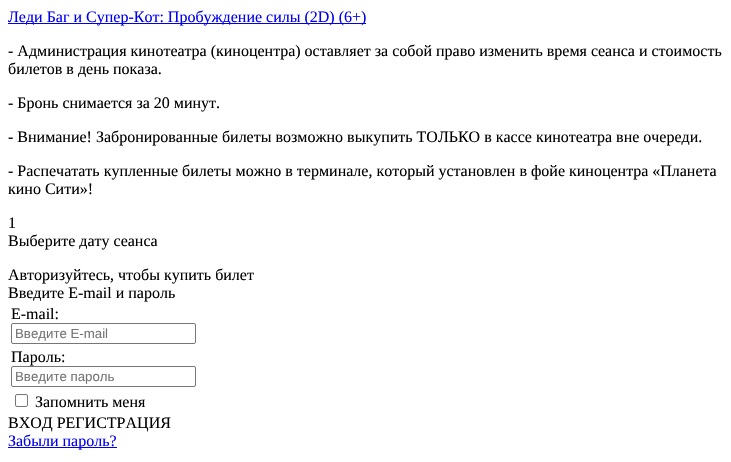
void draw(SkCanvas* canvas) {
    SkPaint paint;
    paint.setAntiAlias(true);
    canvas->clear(0xFFFFFFFF);
    paint.setColor(0xFF0000EE);
    canvas->drawRect(SkRect::MakeXYWH(8, 23, 358, 1), paint);
    SkFont font1(fontMgr->matchFamilyStyle("Liberation Serif", SkFontStyle::Normal()), 16);
    font1.setSubpixel(true);
    canvas->drawString("Леди Баг и Супер-Кот: Пробуждение силы (2D) (6+)", 8, 22, font1, paint);
    paint.setColor(0xFF000000);
    canvas->drawString("- Администрация кинотеатра (киноцентра) оставляет за собой право изменить время сеанса и стоимость", 8, 56, font1, paint);
    canvas->drawString("билетов в день показа.", 8, 74, font1, paint);
    canvas->drawString("- Бронь снимается за 20 минут.", 8, 108, font1, paint);
    canvas->drawString("- Внимание! Забронированные билеты возможно выкупить ТОЛЬКО в кассе кинотеатра вне очереди.", 8, 142, font1, paint);
    canvas->drawString("- Распечатать купленные билеты можно в терминале, который установлен в фойе киноцентра «Планета", 8, 176, font1, paint);
    canvas->drawString("кино Сити»!", 8, 194, font1, paint);
    canvas->drawString("1", 8, 228, font1, paint);
    canvas->drawString("Выберите дату сеанса", 8, 246, font1, paint);
    canvas->drawString("Авторизуйтесь, чтобы купить билет", 8, 280, font1, paint);
    canvas->drawString("Введите E-mail и пароль", 8, 298, font1, paint);
    canvas->drawString("E-mail:", 11, 319, font1, paint);
    paint.setStyle(SkPaint::kStroke_Style);
    paint.setStrokeWidth(1);
    paint.setColor(0xFF767676);
    canvas->drawRoundRect(SkRect::MakeXYWH(11.5f, 323.5f, 184, 20), 1.5f, 1.5f, paint);
    SkFont font2(fontMgr->matchFamilyStyle("Liberation Sans", SkFontStyle::Normal()), 13.25f);
    font2.setSubpixel(true);
    paint.setStyle(SkPaint::kFill_Style);
    paint.setColor(0xFF757575);
    canvas->drawString("Введите E-mail", 15, 338, font2, paint);
    paint.setColor(0xFF000000);
    canvas->drawString("Пароль:", 11, 362, font1, paint);
    paint.setStyle(SkPaint::kStroke_Style);
    paint.setColor(0xFF767676);
    canvas->drawRoundRect(SkRect::MakeXYWH(11.5f, 366.5f, 184, 20), 1.5f, 1.5f, paint);
    paint.setStyle(SkPaint::kFill_Style);
    paint.setColor(0xFF757575);
    canvas->drawString("Введите пароль", 15, 381, font2, paint);
    paint.setStyle(SkPaint::kStroke_Style);
    paint.setColor(0xFF767676);
    canvas->drawRoundRect(SkRect::MakeXYWH(15.5f, 394.5f, 12, 12), 1.5f, 1.5f, paint);
    paint.setStyle(SkPaint::kFill_Style);
    paint.setColor(0xFF000000);
    canvas->drawString("Запомнить меня", 35, 407, font1, paint);
    canvas->drawString("ВХОД РЕГИСТРАЦИЯ", 8, 428, font1, paint);
    paint.setColor(0xFF0000EE);
    canvas->drawRect(SkRect::MakeXYWH(8, 447, 109, 1), paint);
    canvas->drawString("Забыли пароль?", 8, 446, font1, paint);
}
